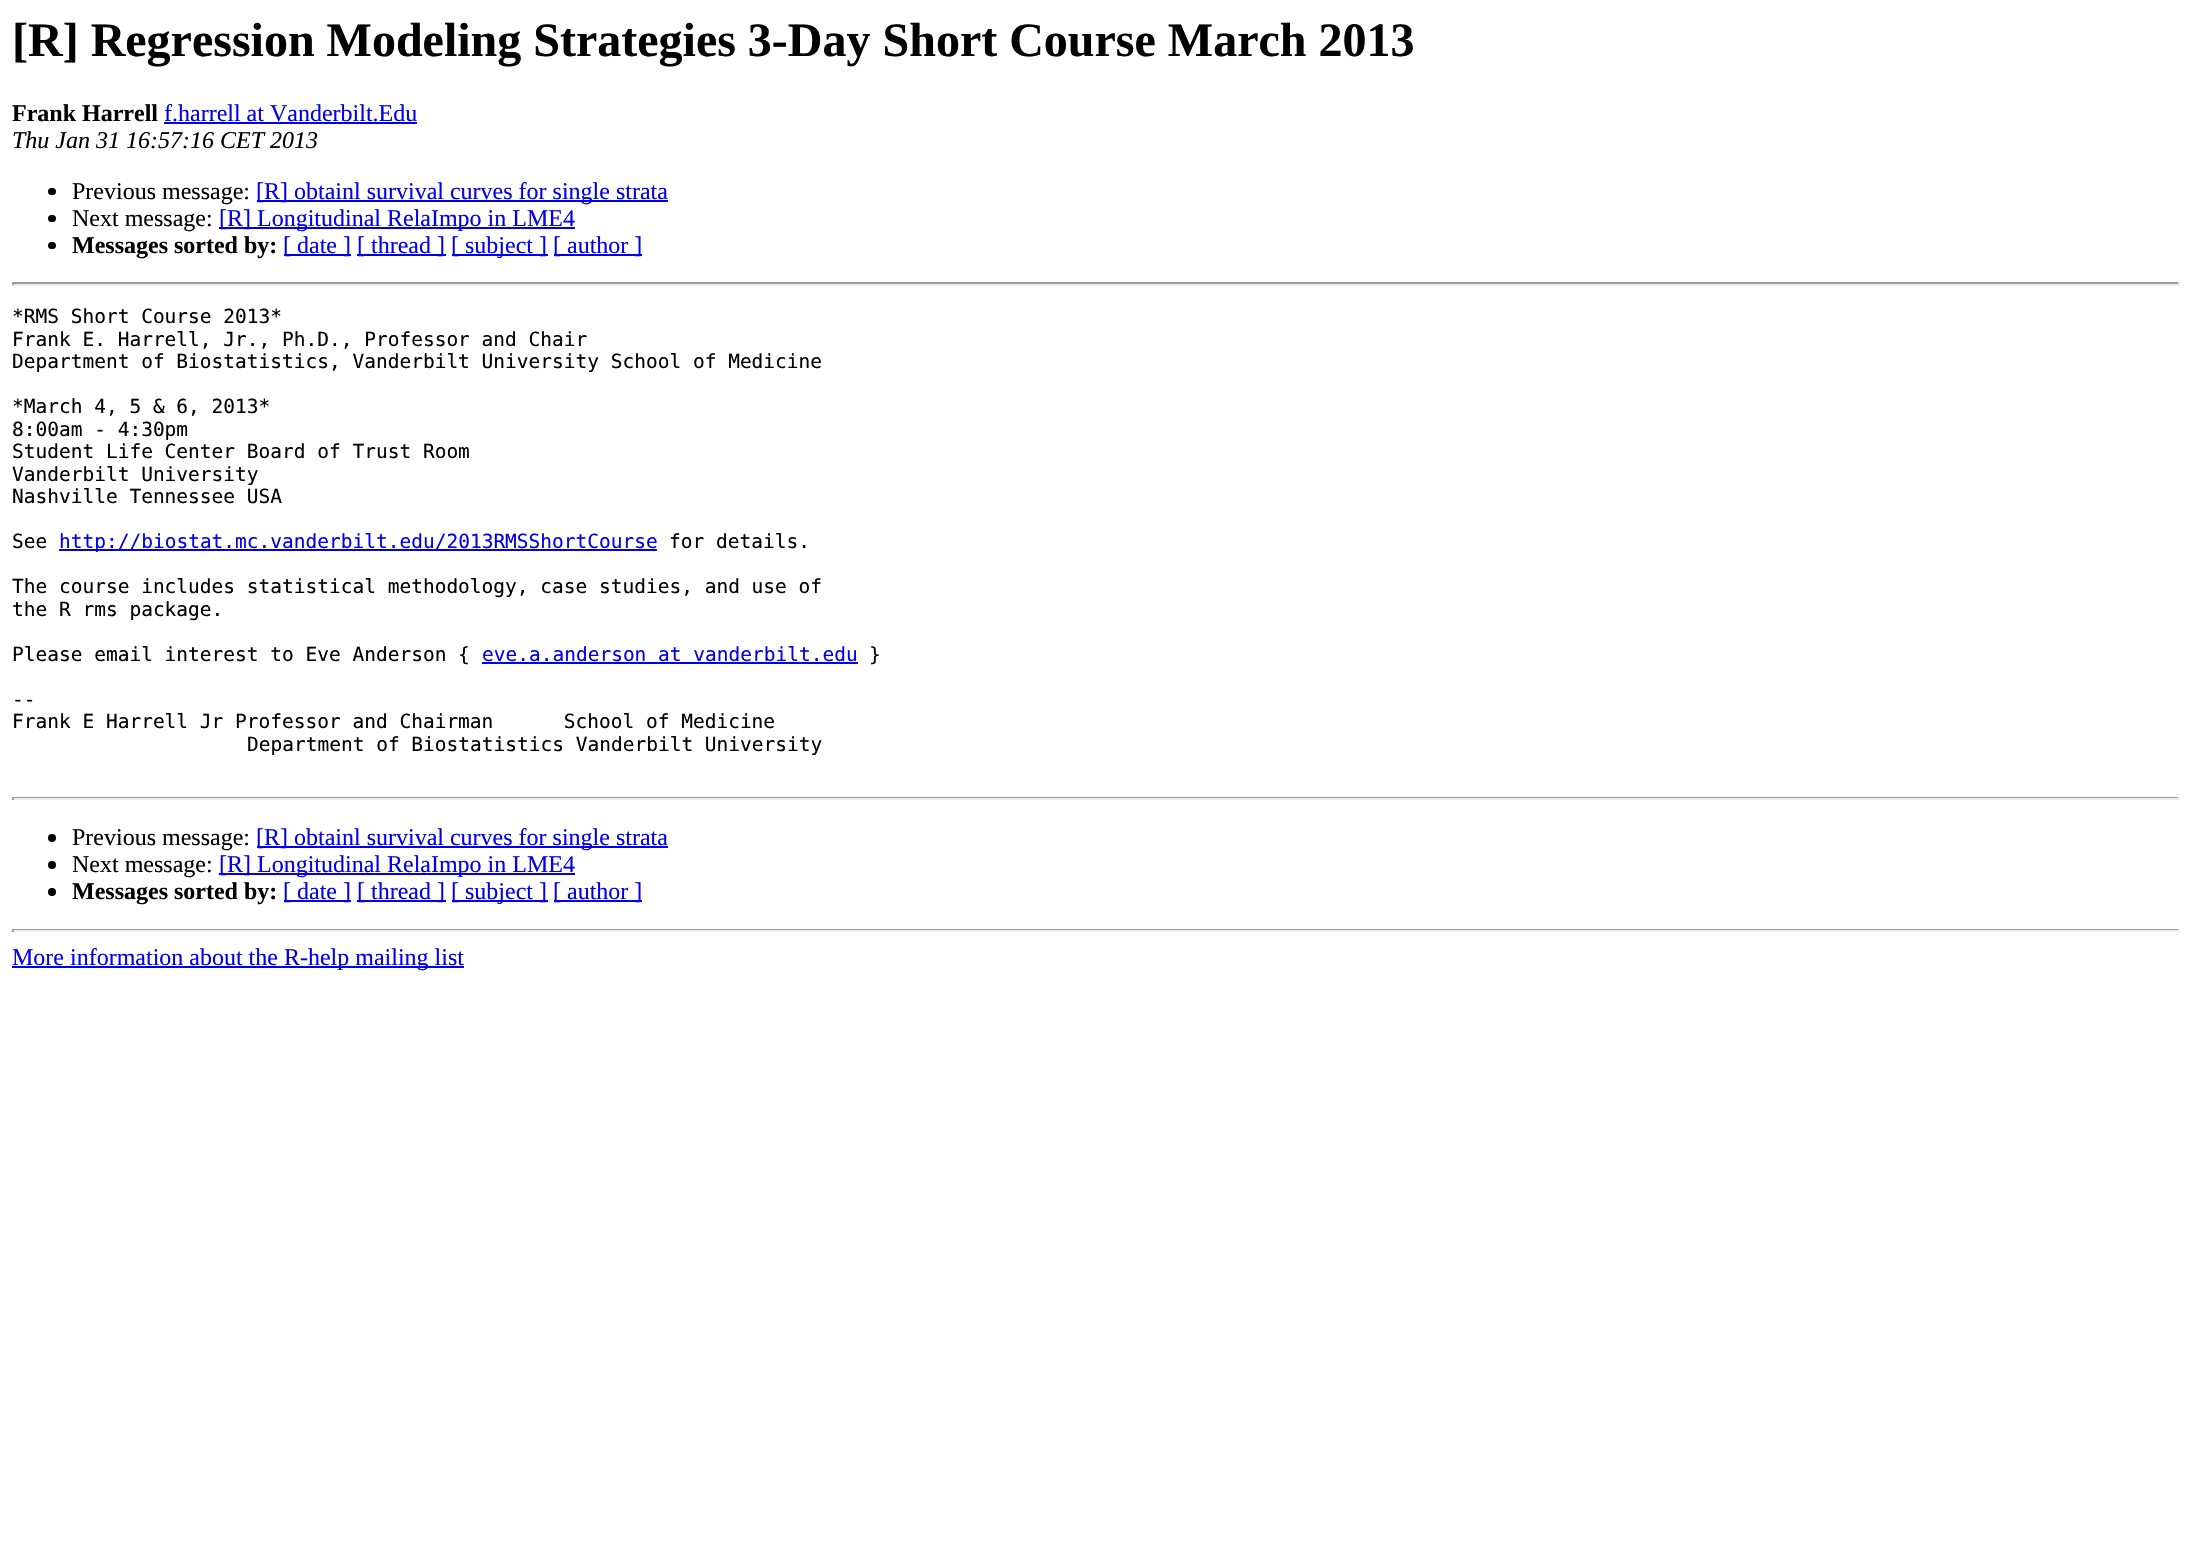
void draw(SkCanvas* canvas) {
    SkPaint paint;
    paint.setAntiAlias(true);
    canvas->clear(0xFFFFFFFF);
    SkFont font1(fontMgr->matchFamilyStyle("Liberation Serif", SkFontStyle::Bold()), 48);
    font1.setSubpixel(true);
    paint.setColor(0xFF000000);
    canvas->drawString("[R] Regression Modeling Strategies 3-Day Short Course March 2013", 12, 56, font1, paint);
    SkFont font2(fontMgr->matchFamilyStyle("Liberation Serif", SkFontStyle::Bold()), 24);
    font2.setSubpixel(true);
    canvas->drawString("Frank Harrell", 12, 121, font2, paint);
    SkFont font3(fontMgr->matchFamilyStyle("Liberation Serif", SkFontStyle::Normal()), 24);
    font3.setSubpixel(true);
    paint.setColor(0xFF0000EE);
    canvas->drawString("f.harrell at Vanderbilt.Edu", 164, 121, font3, paint);
    canvas->drawRect(SkRect::MakeXYWH(164, 122, 253, 2), paint);
    SkFont font4(fontMgr->matchFamilyStyle("Liberation Serif", SkFontStyle::Italic()), 24);
    font4.setSubpixel(true);
    paint.setColor(0xFF000000);
    canvas->drawString("Thu Jan 31 16:57:16 CET 2013", 12, 148, font4, paint);
    canvas->drawRoundRect(SkRect::MakeXYWH(48, 188, 8, 7), 3.5f, 3.5f, paint);
    canvas->drawString("Previous message:", 72, 199, font3, paint);
    paint.setColor(0xFF0000EE);
    canvas->drawRect(SkRect::MakeXYWH(257, 200, 411, 2), paint);
    canvas->drawString("[R] obtainl survival curves for single strata", 256, 199, font3, paint);
    paint.setColor(0xFF000000);
    canvas->drawRoundRect(SkRect::MakeXYWH(48, 215, 8, 7), 3.5f, 3.5f, paint);
    canvas->drawString("Next message:", 72, 226, font3, paint);
    paint.setColor(0xFF0000EE);
    canvas->drawRect(SkRect::MakeXYWH(219, 227, 356, 2), paint);
    canvas->drawString("[R] Longitudinal RelaImpo in LME4", 219, 226, font3, paint);
    paint.setColor(0xFF000000);
    canvas->drawRoundRect(SkRect::MakeXYWH(48, 242, 8, 7), 3.5f, 3.5f, paint);
    canvas->drawString("Messages sorted by:", 72, 253, font2, paint);
    paint.setColor(0xFF0000EE);
    canvas->drawRect(SkRect::MakeXYWH(284, 254, 67, 2), paint);
    canvas->drawString("[ date ]", 283, 253, font3, paint);
    canvas->drawRect(SkRect::MakeXYWH(357, 254, 89, 2), paint);
    canvas->drawString("[ thread ]", 357, 253, font3, paint);
    canvas->drawRect(SkRect::MakeXYWH(452, 254, 96, 2), paint);
    canvas->drawString("[ subject ]", 451, 253, font3, paint);
    canvas->drawRect(SkRect::MakeXYWH(554, 254, 88, 2), paint);
    canvas->drawString("[ author ]", 553, 253, font3, paint);
    paint.setColor(0xFF9F9F9F);
    canvas->drawRect(SkRect::MakeXYWH(12, 282, 2168, 2), paint);
    paint.setColor(0xFFEEEEEE);
    canvas->drawRect(SkRect::MakeXYWH(2178, 282, 2, 3), paint);
    canvas->drawRect(SkRect::MakeXYWH(12, 284, 2168, 2), paint);
    paint.setColor(0xFF9F9F9F);
    canvas->drawRect(SkRect::MakeXYWH(12, 282, 2, 3), paint);
    SkFont font5(fontMgr->matchFamilyStyle("DejaVu Sans Mono", SkFontStyle::Normal()), 19.5f);
    font5.setSubpixel(true);
    paint.setColor(0xFF000000);
    canvas->drawString("*RMS Short Course 2013*", 12, 323, font5, paint);
    canvas->drawString("Frank E. Harrell, Jr., Ph.D., Professor and Chair", 12, 346, font5, paint);
    canvas->drawString("Department of Biostatistics, Vanderbilt University School of Medicine", 12, 368, font5, paint);
    canvas->drawString("*March 4, 5 & 6, 2013*", 12, 413, font5, paint);
    canvas->drawString("8:00am - 4:30pm", 12, 436, font5, paint);
    canvas->drawString("Student Life Center Board of Trust Room", 12, 458, font5, paint);
    canvas->drawString("Vanderbilt University", 12, 481, font5, paint);
    canvas->drawString("Nashville Tennessee USA", 12, 503, font5, paint);
    canvas->drawString("See", 12, 548, font5, paint);
    paint.setColor(0xFF0000EE);
    canvas->drawRect(SkRect::MakeXYWH(59, 549, 598, 2), paint);
    canvas->drawString("http://biostat.mc.vanderbilt.edu/2013RMSShortCourse", 59, 548, font5, paint);
    paint.setColor(0xFF000000);
    canvas->drawString("for details.", 669, 548, font5, paint);
    canvas->drawString("The course includes statistical methodology, case studies, and use of", 12, 593, font5, paint);
    canvas->drawString("the R rms package.", 12, 616, font5, paint);
    canvas->drawString("Please email interest to Eve Anderson {", 12, 661, font5, paint);
    paint.setColor(0xFF0000EE);
    canvas->drawString("eve.a.anderson at vanderbilt.edu", 482, 661, font5, paint);
    canvas->drawRect(SkRect::MakeXYWH(482, 662, 376, 2), paint);
    paint.setColor(0xFF000000);
    canvas->drawString("}", 869, 661, font5, paint);
    canvas->drawString("--", 12, 706, font5, paint);
    canvas->drawString("Frank E Harrell Jr Professor and Chairman      School of Medicine", 12, 728, font5, paint);
    canvas->drawString("Department of Biostatistics Vanderbilt University", 247, 751, font5, paint);
    paint.setColor(0xFF9F9F9F);
    canvas->drawRect(SkRect::MakeXYWH(12, 797, 2168, 1), paint);
    paint.setColor(0xFFEEEEEE);
    canvas->drawRect(SkRect::MakeXYWH(2178, 797, 2, 3), paint);
    canvas->drawRect(SkRect::MakeXYWH(12, 798, 2168, 2), paint);
    paint.setColor(0xFF9F9F9F);
    canvas->drawRect(SkRect::MakeXYWH(12, 797, 2, 3), paint);
    paint.setColor(0xFF000000);
    canvas->drawCircle(52, 838, 4, paint);
    canvas->drawString("Previous message:", 72, 845, font3, paint);
    paint.setColor(0xFF0000EE);
    canvas->drawRect(SkRect::MakeXYWH(257, 846, 411, 2), paint);
    canvas->drawString("[R] obtainl survival curves for single strata", 256, 845, font3, paint);
    paint.setColor(0xFF000000);
    canvas->drawCircle(52, 865, 4, paint);
    canvas->drawString("Next message:", 72, 872, font3, paint);
    paint.setColor(0xFF0000EE);
    canvas->drawRect(SkRect::MakeXYWH(219, 873, 356, 2), paint);
    canvas->drawString("[R] Longitudinal RelaImpo in LME4", 219, 872, font3, paint);
    paint.setColor(0xFF000000);
    canvas->drawCircle(52, 892, 4, paint);
    canvas->drawString("Messages sorted by:", 72, 899, font2, paint);
    paint.setColor(0xFF0000EE);
    canvas->drawRect(SkRect::MakeXYWH(284, 900, 67, 2), paint);
    canvas->drawString("[ date ]", 283, 899, font3, paint);
    canvas->drawRect(SkRect::MakeXYWH(357, 900, 89, 2), paint);
    canvas->drawString("[ thread ]", 357, 899, font3, paint);
    canvas->drawRect(SkRect::MakeXYWH(452, 900, 96, 2), paint);
    canvas->drawString("[ subject ]", 451, 899, font3, paint);
    canvas->drawRect(SkRect::MakeXYWH(554, 900, 88, 2), paint);
    canvas->drawString("[ author ]", 553, 899, font3, paint);
    paint.setColor(0xFF9F9F9F);
    canvas->drawRect(SkRect::MakeXYWH(12, 929, 2168, 1), paint);
    paint.setColor(0xFFEEEEEE);
    canvas->drawRect(SkRect::MakeXYWH(2178, 929, 2, 3), paint);
    canvas->drawRect(SkRect::MakeXYWH(12, 930, 2168, 2), paint);
    paint.setColor(0xFF9F9F9F);
    canvas->drawRect(SkRect::MakeXYWH(12, 929, 2, 3), paint);
    paint.setColor(0xFF0000EE);
    canvas->drawRect(SkRect::MakeXYWH(12, 966, 452, 2), paint);
    canvas->drawString("More information about the R-help mailing list", 12, 965, font3, paint);
}
